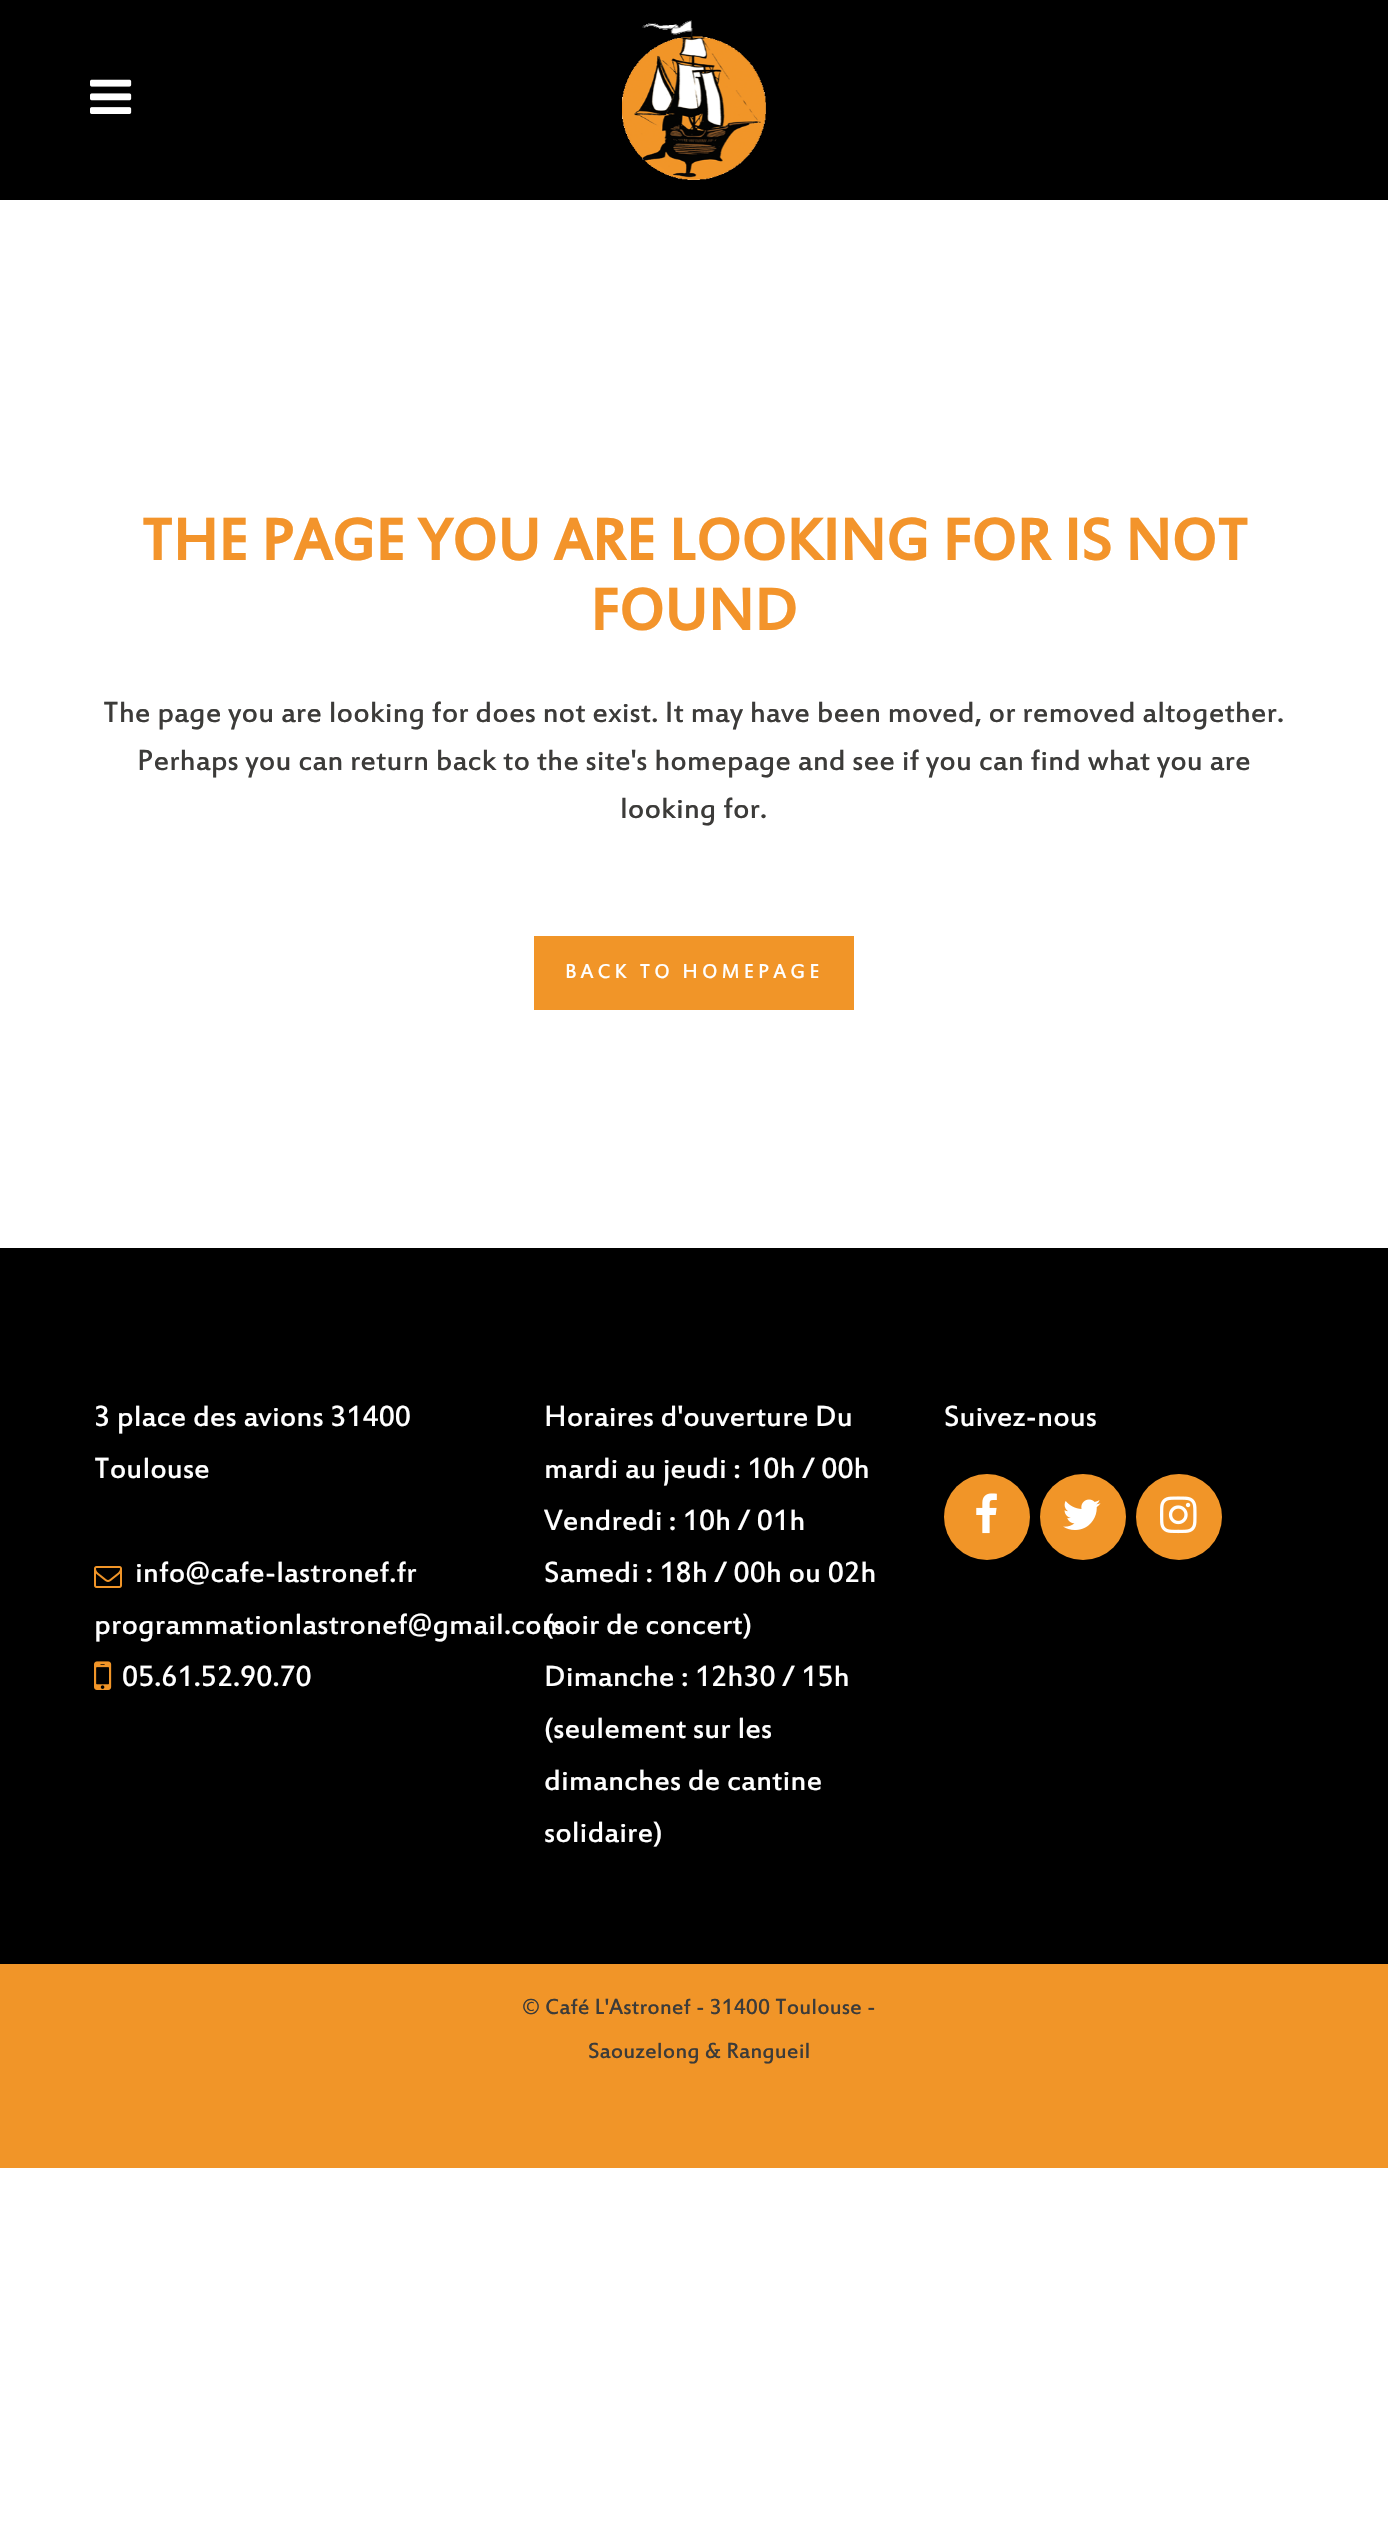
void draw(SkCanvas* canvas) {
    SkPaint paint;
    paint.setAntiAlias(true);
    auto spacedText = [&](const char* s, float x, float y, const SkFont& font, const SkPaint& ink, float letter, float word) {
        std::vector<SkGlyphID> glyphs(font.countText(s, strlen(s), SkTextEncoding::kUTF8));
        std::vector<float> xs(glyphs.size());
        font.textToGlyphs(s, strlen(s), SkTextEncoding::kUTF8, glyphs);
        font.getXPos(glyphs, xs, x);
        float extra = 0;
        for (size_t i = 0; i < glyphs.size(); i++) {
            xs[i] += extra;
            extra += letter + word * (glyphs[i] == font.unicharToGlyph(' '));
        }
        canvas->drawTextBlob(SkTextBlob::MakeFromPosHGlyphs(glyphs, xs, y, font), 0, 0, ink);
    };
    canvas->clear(0xFFFFFFFF);
    paint.setColor(0xFF000000);
    canvas->drawRect(SkRect::MakeXYWH(0, 0, 1388, 200), paint);
    canvas->drawImageRect(SkImages::DeferredFromEncodedData(SkData::MakeFromFileName("img1.png")), SkRect::MakeXYWH(90, 79, 42, 35), SkSamplingOptions());
    canvas->drawImageRect(SkImages::DeferredFromEncodedData(SkData::MakeFromFileName("img2.png")), SkRect::MakeXYWH(622, 20, 144, 160), SkSamplingOptions());
    SkFont font1(fontMgr->matchFamilyStyle("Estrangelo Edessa", SkFontStyle::Bold()), 64);
    font1.setSubpixel(true);
    paint.setColor(0xFFF3942B);
    canvas->drawString("THE PAGE YOU ARE LOOKING FOR IS NOT", 141, 560, font1, paint);
    canvas->drawString("FOUND", 590, 630, font1, paint);
    SkFont font2(fontMgr->matchFamilyStyle("Estrangelo Edessa", SkFontStyle::Normal()), 32);
    font2.setSubpixel(true);
    paint.setColor(0xFF3C3B39);
    canvas->drawString("The page you are looking for does not exist. It may have been moved, or removed altogether.", 103, 722, font2, paint);
    canvas->drawString("Perhaps you can return back to the site's homepage and see if you can find what you are", 137, 770, font2, paint);
    canvas->drawString("looking for.", 620, 818, font2, paint);
    paint.setColor(0xFFF19528);
    canvas->drawRect(SkRect::MakeXYWH(534, 936, 320, 74), paint);
    SkFont font3(fontMgr->matchFamilyStyle("Estrangelo Edessa", SkFontStyle::Normal()), 22);
    font3.setSubpixel(true);
    paint.setColor(0xFFFFFFFF);
    spacedText("BACK TO HOMEPAGE", 565, 978, font3, paint, 4, 0);
    paint.setColor(0xFF000000);
    canvas->drawRect(SkRect::MakeXYWH(0, 1248, 1388, 716), paint);
    paint.setColor(0xFFFFFFFF);
    canvas->drawString("3 place des avions 31400", 94, 1426, font2, paint);
    canvas->drawString("Toulouse", 94, 1478, font2, paint);
    canvas->drawImageRect(SkImages::DeferredFromEncodedData(SkData::MakeFromFileName("img3.png")), SkRect::MakeXYWH(94, 1566, 28, 22), SkSamplingOptions());
    canvas->drawString("info@cafe-lastronef.fr", 135, 1582, font2, paint);
    canvas->drawString("programmationlastronef@gmail.com", 94, 1634, font2, paint);
    canvas->drawImageRect(SkImages::DeferredFromEncodedData(SkData::MakeFromFileName("img4.png")), SkRect::MakeXYWH(94, 1661, 18, 29), SkSamplingOptions());
    canvas->drawString("05.61.52.90.70", 122, 1686, font2, paint);
    canvas->drawString("Horaires d'ouverture Du", 544, 1426, font2, paint);
    canvas->drawString("mardi au jeudi : 10h / 00h", 544, 1478, font2, paint);
    canvas->drawString("Vendredi : 10h / 01h", 544, 1530, font2, paint);
    canvas->drawString("Samedi : 18h / 00h ou 02h", 544, 1582, font2, paint);
    canvas->drawString("(soir de concert)", 544, 1634, font2, paint);
    canvas->drawString("Dimanche : 12h30 / 15h", 544, 1686, font2, paint);
    canvas->drawString("(seulement sur les", 544, 1738, font2, paint);
    canvas->drawString("dimanches de cantine", 544, 1790, font2, paint);
    canvas->drawString("solidaire)", 544, 1842, font2, paint);
    canvas->drawString("Suivez-nous", 944, 1426, font2, paint);
    paint.setColor(0xFFF19528);
    canvas->drawCircle(987, 1517, 43, paint);
    canvas->drawImageRect(SkImages::DeferredFromEncodedData(SkData::MakeFromFileName("img5.png")), SkRect::MakeXYWH(976, 1493, 21, 41), SkSamplingOptions());
    canvas->drawCircle(1083, 1517, 43, paint);
    canvas->drawImageRect(SkImages::DeferredFromEncodedData(SkData::MakeFromFileName("img6.png")), SkRect::MakeXYWH(1063, 1499, 38, 31), SkSamplingOptions());
    canvas->drawCircle(1179, 1517, 43, paint);
    canvas->drawImageRect(SkImages::DeferredFromEncodedData(SkData::MakeFromFileName("img7.png")), SkRect::MakeXYWH(1160, 1496, 37, 38), SkSamplingOptions());
    canvas->drawRect(SkRect::MakeXYWH(0, 1964, 1388, 204), paint);
    SkFont font4(fontMgr->matchFamilyStyle("Estrangelo Edessa", SkFontStyle::Normal()), 24);
    font4.setSubpixel(true);
    paint.setColor(0xFF3C3B39);
    canvas->drawString("© Café L'Astronef - 31400 Toulouse -", 522, 2014, font4, paint);
    canvas->drawString("Saouzelong & Rangueil", 588, 2058, font4, paint);
}
